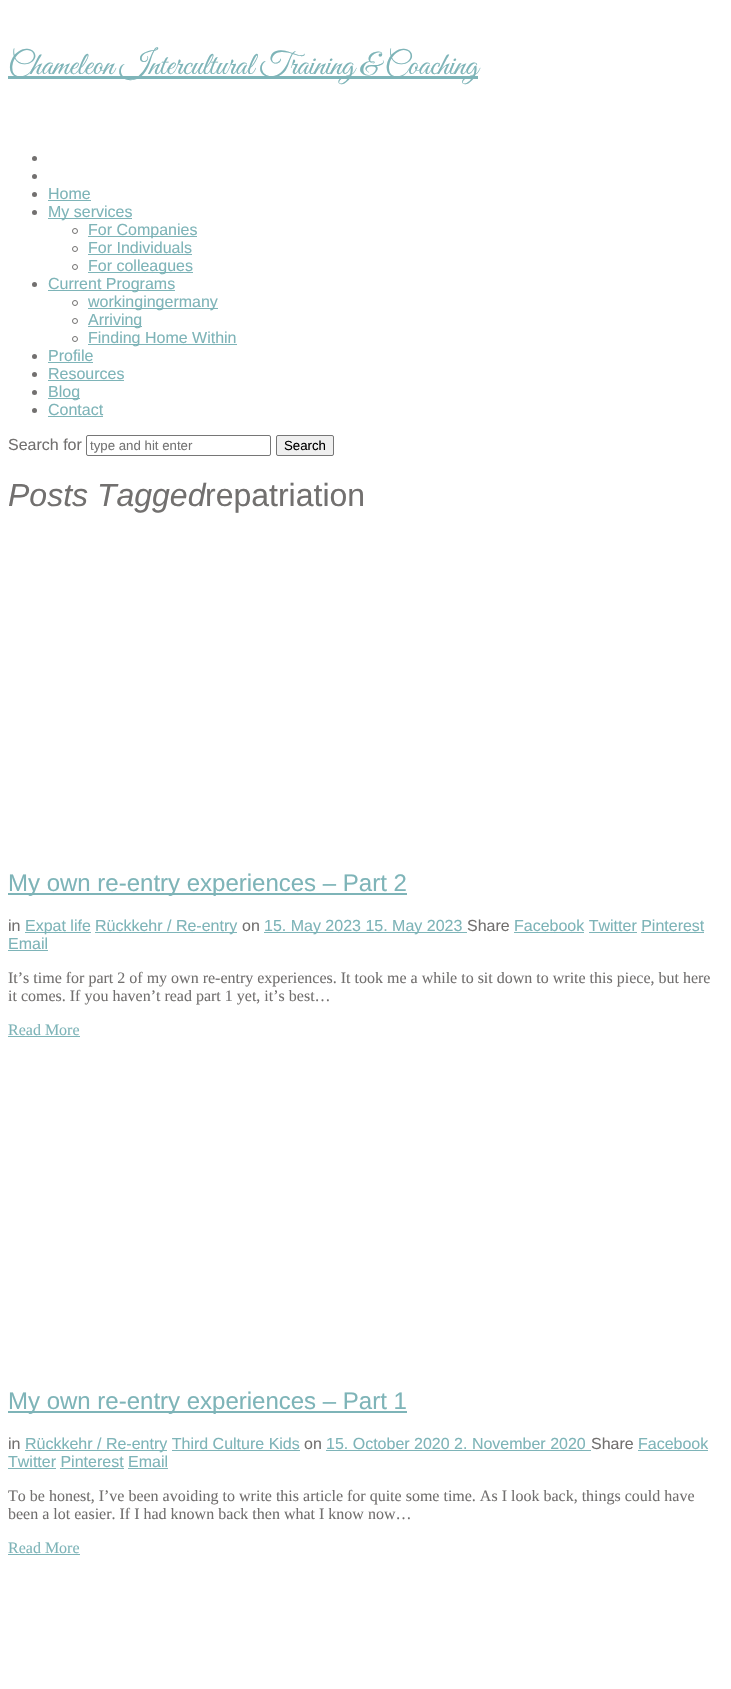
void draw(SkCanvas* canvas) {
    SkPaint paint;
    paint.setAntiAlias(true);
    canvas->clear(0xFFFFFFFF);
    paint.setColor(0xFF7EB4B8);
    canvas->drawRect(SkRect::MakeXYWH(8, 76, 470, 3), paint);
    SkFont font1(fontMgr->matchFamilyStyle("Great Vibes", SkFontStyle::Normal()), 32);
    font1.setSubpixel(true);
    canvas->drawString("Chameleon Intercultural Training & Coaching", 8, 74, font1, paint);
    paint.setColor(0xFF72706F);
    canvas->drawCircle(34.5f, 158.5f, 2.5f, paint);
    canvas->drawCircle(34.5f, 176.5f, 2.5f, paint);
    canvas->drawCircle(34.5f, 194.5f, 2.5f, paint);
    SkFont font2(fontMgr->matchFamilyStyle("Liberation Sans", SkFontStyle::Normal()), 16);
    font2.setSubpixel(true);
    paint.setColor(0xFF7EB4B8);
    canvas->drawString("Home", 48, 199, font2, paint);
    canvas->drawRect(SkRect::MakeXYWH(48, 200, 43, 1), paint);
    paint.setColor(0xFF72706F);
    canvas->drawCircle(34.5f, 212.5f, 2.5f, paint);
    paint.setColor(0xFF7EB4B8);
    canvas->drawRect(SkRect::MakeXYWH(48, 218, 84, 1), paint);
    canvas->drawString("My services", 48, 217, font2, paint);
    paint.setStyle(SkPaint::kStroke_Style);
    paint.setStrokeWidth(1);
    paint.setColor(0xFF72706F);
    canvas->drawCircle(75, 231, 2.5f, paint);
    paint.setStyle(SkPaint::kFill_Style);
    paint.setColor(0xFF7EB4B8);
    canvas->drawRect(SkRect::MakeXYWH(88, 236, 109, 1), paint);
    canvas->drawString("For Companies", 88, 235, font2, paint);
    paint.setStyle(SkPaint::kStroke_Style);
    paint.setColor(0xFF72706F);
    canvas->drawCircle(75, 249, 2.5f, paint);
    paint.setStyle(SkPaint::kFill_Style);
    paint.setColor(0xFF7EB4B8);
    canvas->drawString("For Individuals", 88, 253, font2, paint);
    canvas->drawRect(SkRect::MakeXYWH(88, 254, 104, 1), paint);
    paint.setStyle(SkPaint::kStroke_Style);
    paint.setColor(0xFF72706F);
    canvas->drawCircle(75, 267, 2.5f, paint);
    paint.setStyle(SkPaint::kFill_Style);
    paint.setColor(0xFF7EB4B8);
    canvas->drawRect(SkRect::MakeXYWH(88, 272, 105, 1), paint);
    canvas->drawString("For colleagues", 88, 271, font2, paint);
    paint.setColor(0xFF72706F);
    canvas->drawCircle(34.5f, 284.5f, 2.5f, paint);
    paint.setColor(0xFF7EB4B8);
    canvas->drawRect(SkRect::MakeXYWH(48, 290, 127, 1), paint);
    canvas->drawString("Current Programs", 48, 289, font2, paint);
    paint.setStyle(SkPaint::kStroke_Style);
    paint.setColor(0xFF72706F);
    canvas->drawCircle(75, 303, 2.5f, paint);
    paint.setStyle(SkPaint::kFill_Style);
    paint.setColor(0xFF7EB4B8);
    canvas->drawRect(SkRect::MakeXYWH(88, 308, 130, 1), paint);
    canvas->drawString("workingingermany", 88, 307, font2, paint);
    paint.setStyle(SkPaint::kStroke_Style);
    paint.setColor(0xFF72706F);
    canvas->drawCircle(75, 321, 2.5f, paint);
    paint.setStyle(SkPaint::kFill_Style);
    paint.setColor(0xFF7EB4B8);
    canvas->drawRect(SkRect::MakeXYWH(88, 326, 54, 1), paint);
    canvas->drawString("Arriving", 88, 325, font2, paint);
    paint.setStyle(SkPaint::kStroke_Style);
    paint.setColor(0xFF72706F);
    canvas->drawCircle(75, 339, 2.5f, paint);
    paint.setStyle(SkPaint::kFill_Style);
    paint.setColor(0xFF7EB4B8);
    canvas->drawRect(SkRect::MakeXYWH(88, 344, 149, 1), paint);
    canvas->drawString("Finding Home Within", 88, 343, font2, paint);
    paint.setColor(0xFF72706F);
    canvas->drawCircle(34.5f, 356.5f, 2.5f, paint);
    paint.setColor(0xFF7EB4B8);
    canvas->drawString("Profile", 48, 361, font2, paint);
    canvas->drawRect(SkRect::MakeXYWH(48, 362, 45, 1), paint);
    paint.setColor(0xFF72706F);
    canvas->drawCircle(34.5f, 374.5f, 2.5f, paint);
    paint.setColor(0xFF7EB4B8);
    canvas->drawString("Resources", 48, 379, font2, paint);
    canvas->drawRect(SkRect::MakeXYWH(48, 380, 76, 1), paint);
    paint.setColor(0xFF72706F);
    canvas->drawCircle(34.5f, 392.5f, 2.5f, paint);
    paint.setColor(0xFF7EB4B8);
    canvas->drawRect(SkRect::MakeXYWH(48, 398, 32, 1), paint);
    canvas->drawString("Blog", 48, 397, font2, paint);
    paint.setColor(0xFF72706F);
    canvas->drawCircle(34.5f, 410.5f, 2.5f, paint);
    paint.setColor(0xFF7EB4B8);
    canvas->drawString("Contact", 48, 415, font2, paint);
    canvas->drawRect(SkRect::MakeXYWH(48, 416, 55, 1), paint);
    paint.setColor(0xFF72706F);
    canvas->drawString("Search for", 8, 450, font2, paint);
    paint.setStyle(SkPaint::kStroke_Style);
    paint.setColor(0xFF767676);
    canvas->drawRoundRect(SkRect::MakeXYWH(86.5f, 435.5f, 184, 20), 1.5f, 1.5f, paint);
    SkFont font3(fontMgr->matchFamilyStyle("Liberation Sans", SkFontStyle::Normal()), 13.25f);
    font3.setSubpixel(true);
    paint.setStyle(SkPaint::kFill_Style);
    paint.setColor(0xFF757575);
    canvas->drawString("type and hit enter", 90, 450, font3, paint);
    paint.setColor(0xFFEFEFEF);
    canvas->drawRoundRect(SkRect::MakeXYWH(276.5f, 435.5f, 57, 20), 1.5f, 1.5f, paint);
    paint.setStyle(SkPaint::kStroke_Style);
    paint.setColor(0xFF767676);
    canvas->drawRoundRect(SkRect::MakeXYWH(276.5f, 435.5f, 57, 20), 1.5f, 1.5f, paint);
    paint.setStyle(SkPaint::kFill_Style);
    paint.setColor(0xFF000000);
    canvas->drawString("Search", 284, 450, font3, paint);
    SkFont font4(fontMgr->matchFamilyStyle("Liberation Sans", SkFontStyle::Italic()), 32);
    font4.setSubpixel(true);
    paint.setColor(0xFF72706F);
    canvas->drawString("Posts Tagged", 8, 506, font4, paint);
    SkFont font5(fontMgr->matchFamilyStyle("Liberation Sans", SkFontStyle::Normal()), 32);
    font5.setSubpixel(true);
    canvas->drawString("repatriation", 205, 506, font5, paint);
    paint.setColor(0xFF7EB4B8);
    canvas->drawRect(SkRect::MakeXYWH(8, 893, 399, 2), paint);
    SkFont font6(fontMgr->matchFamilyStyle("Liberation Sans", SkFontStyle::Normal()), 24);
    font6.setSubpixel(true);
    canvas->drawString("My own re-entry experiences – Part 2", 8, 891, font6, paint);
    paint.setColor(0xFF72706F);
    canvas->drawString("in", 8, 931, font2, paint);
    paint.setColor(0xFF7EB4B8);
    canvas->drawRect(SkRect::MakeXYWH(25, 932, 66, 1), paint);
    canvas->drawString("Expat life", 25, 931, font2, paint);
    canvas->drawRect(SkRect::MakeXYWH(95, 932, 142, 1), paint);
    canvas->drawString("Rückkehr / Re-entry", 95, 931, font2, paint);
    paint.setColor(0xFF72706F);
    canvas->drawString("on", 242, 931, font2, paint);
    paint.setColor(0xFF7EB4B8);
    canvas->drawRect(SkRect::MakeXYWH(264, 932, 203, 1), paint);
    canvas->drawString("15. May 2023 15. May 2023", 264, 931, font2, paint);
    paint.setColor(0xFF72706F);
    canvas->drawString("Share", 467, 931, font2, paint);
    paint.setColor(0xFF7EB4B8);
    canvas->drawString("Facebook Twitter Pinterest", 514, 931, font2, paint);
    canvas->drawRect(SkRect::MakeXYWH(514, 932, 70, 1), paint);
    canvas->drawRect(SkRect::MakeXYWH(589, 932, 48, 1), paint);
    canvas->drawRect(SkRect::MakeXYWH(641, 932, 63, 1), paint);
    canvas->drawString("Email", 8, 949, font2, paint);
    canvas->drawRect(SkRect::MakeXYWH(8, 950, 40, 1), paint);
    SkFont font7(fontMgr->matchFamilyStyle("Liberation Serif", SkFontStyle::Normal()), 16);
    font7.setSubpixel(true);
    paint.setColor(0xFF72706F);
    canvas->drawString("It’s time for part 2 of my own re-entry experiences. It took me a while to sit down to write this piece, but here", 8, 983, font7, paint);
    canvas->drawString("it comes. If you haven’t read part 1 yet, it’s best…", 8, 1001, font7, paint);
    paint.setColor(0xFF7EB4B8);
    canvas->drawString("Read More", 8, 1035, font7, paint);
    canvas->drawRect(SkRect::MakeXYWH(8, 1036, 72, 1), paint);
    canvas->drawRect(SkRect::MakeXYWH(8, 1411, 399, 2), paint);
    canvas->drawString("My own re-entry experiences – Part 1", 8, 1409, font6, paint);
    paint.setColor(0xFF72706F);
    canvas->drawString("in", 8, 1449, font2, paint);
    paint.setColor(0xFF7EB4B8);
    canvas->drawRect(SkRect::MakeXYWH(25, 1450, 142, 1), paint);
    canvas->drawString("Rückkehr / Re-entry Third Culture Kids", 25, 1449, font2, paint);
    canvas->drawRect(SkRect::MakeXYWH(172, 1450, 128, 1), paint);
    paint.setColor(0xFF72706F);
    canvas->drawString("on", 304, 1449, font2, paint);
    paint.setColor(0xFF7EB4B8);
    canvas->drawString("15. October 2020 2. November 2020", 326, 1449, font2, paint);
    canvas->drawRect(SkRect::MakeXYWH(326, 1450, 265, 1), paint);
    paint.setColor(0xFF72706F);
    canvas->drawString("Share", 591, 1449, font2, paint);
    paint.setColor(0xFF7EB4B8);
    canvas->drawString("Facebook", 638, 1449, font2, paint);
    canvas->drawRect(SkRect::MakeXYWH(638, 1450, 70, 1), paint);
    canvas->drawString("Twitter Pinterest Email", 8, 1467, font2, paint);
    canvas->drawRect(SkRect::MakeXYWH(8, 1468, 48, 1), paint);
    canvas->drawRect(SkRect::MakeXYWH(60, 1468, 64, 1), paint);
    canvas->drawRect(SkRect::MakeXYWH(128, 1468, 40, 1), paint);
    paint.setColor(0xFF72706F);
    canvas->drawString("To be honest, I’ve been avoiding to write this article for quite some time. As I look back, things could have", 8, 1501, font7, paint);
    canvas->drawString("been a lot easier. If I had known back then what I know now…", 8, 1519, font7, paint);
    paint.setColor(0xFF7EB4B8);
    canvas->drawString("Read More", 8, 1553, font7, paint);
    canvas->drawRect(SkRect::MakeXYWH(8, 1554, 72, 1), paint);
}
